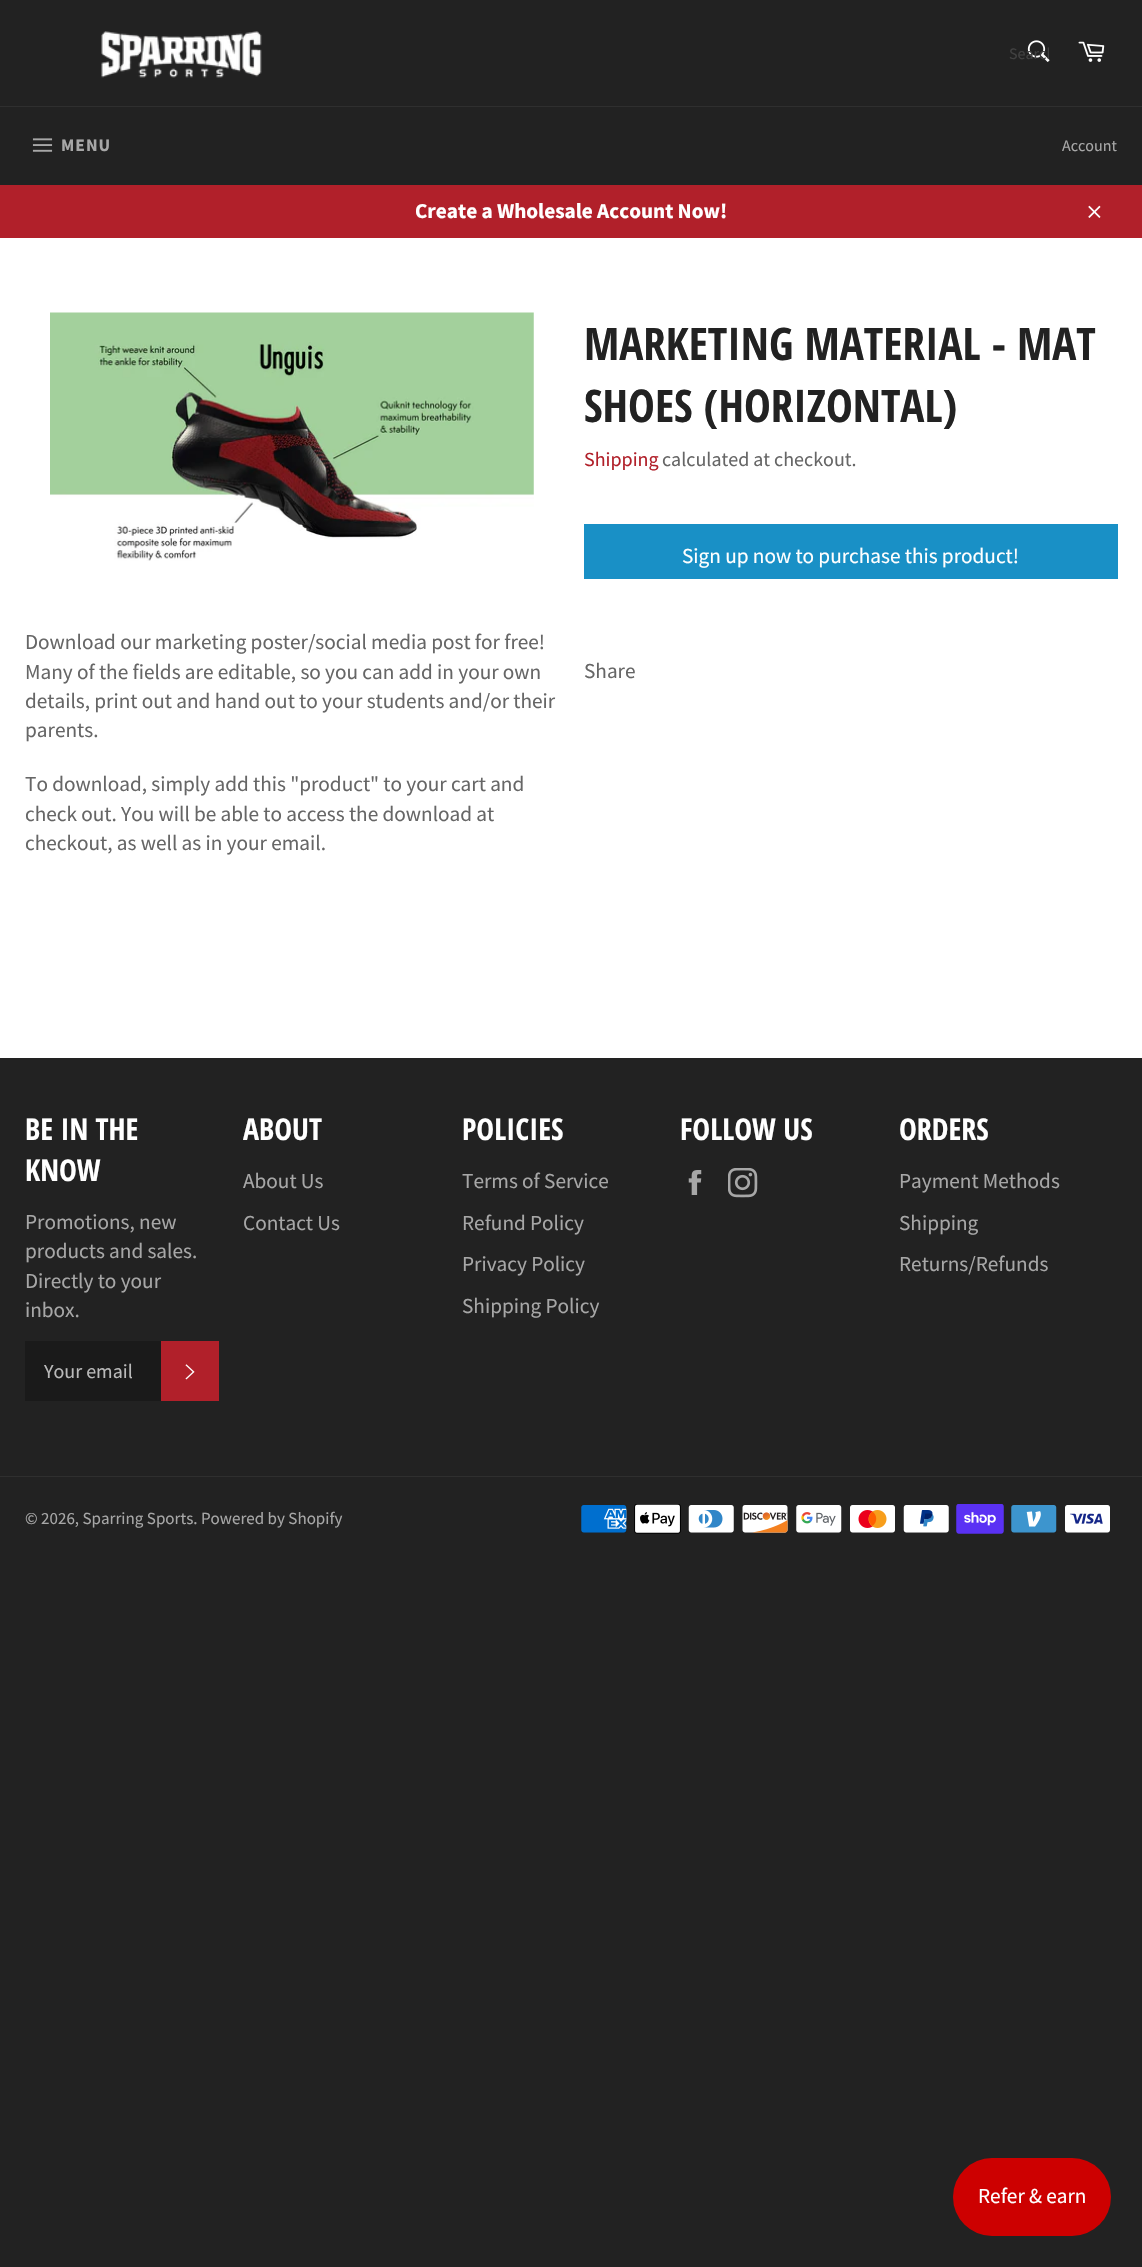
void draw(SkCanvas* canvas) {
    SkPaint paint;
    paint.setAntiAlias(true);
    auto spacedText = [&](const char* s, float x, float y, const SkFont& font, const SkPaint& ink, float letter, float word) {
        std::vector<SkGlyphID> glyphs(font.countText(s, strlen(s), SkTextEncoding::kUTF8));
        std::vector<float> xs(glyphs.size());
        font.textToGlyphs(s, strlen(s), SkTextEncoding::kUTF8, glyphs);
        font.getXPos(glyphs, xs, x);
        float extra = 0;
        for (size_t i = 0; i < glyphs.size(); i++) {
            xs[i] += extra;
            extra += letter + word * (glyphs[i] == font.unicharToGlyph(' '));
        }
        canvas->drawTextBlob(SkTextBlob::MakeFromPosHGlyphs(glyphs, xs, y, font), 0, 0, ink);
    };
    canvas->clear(0xFF222222);
    paint.setColor(0xFFFFFFFF);
    canvas->drawRect(SkRect::MakeXYWH(0, 238, 1142, 820), paint);
    canvas->drawImageRect(SkImages::DeferredFromEncodedData(SkData::MakeFromFileName("img1.png")), SkRect::MakeXYWH(101, 31, 161, 47), SkSamplingOptions());
    canvas->drawImageRect(SkImages::DeferredFromEncodedData(SkData::MakeFromFileName("img2.png")), SkRect::MakeXYWH(1027, 40, 23, 22), SkSamplingOptions());
    canvas->save();
    canvas->clipRect(SkRect::MakeXYWH(1009, 43, 40, 21));
    SkFont font1(fontMgr->matchFamilyStyle("Source Sans Pro", SkFontStyle::Normal()), 16);
    font1.setSubpixel(true);
    paint.setColor(0xFF414141);
    canvas->drawString("Search", 1009, 59, font1, paint);
    canvas->restore();
    canvas->drawImageRect(SkImages::DeferredFromEncodedData(SkData::MakeFromFileName("img3.png")), SkRect::MakeXYWH(1078, 41, 27, 21), SkSamplingOptions());
    paint.setColor(0xFF2F2F2F);
    canvas->drawRect(SkRect::MakeXYWH(0, 106, 1142, 1), paint);
    canvas->drawImageRect(SkImages::DeferredFromEncodedData(SkData::MakeFromFileName("img4.png")), SkRect::MakeXYWH(32, 138, 21, 14), SkSamplingOptions());
    SkFont font2(fontMgr->matchFamilyStyle("Source Sans Pro", SkFontStyle::Bold()), 17.5f);
    font2.setSubpixel(true);
    paint.setColor(0xFFA7A7A7);
    spacedText("MENU", 61, 151, font2, paint, 1, 0);
    canvas->drawString("Account", 1062, 151, font1, paint);
    paint.setColor(0xFFB1202A);
    canvas->drawRect(SkRect::MakeXYWH(0, 185, 1142, 53), paint);
    SkFont font3(fontMgr->matchFamilyStyle("Source Sans Pro", SkFontStyle::Bold()), 21.25f);
    font3.setSubpixel(true);
    paint.setColor(0xFFFFFFFF);
    canvas->drawString("Create a Wholesale Account Now!", 415, 218, font3, paint);
    canvas->drawImageRect(SkImages::DeferredFromEncodedData(SkData::MakeFromFileName("img5.png")), SkRect::MakeXYWH(1088, 205, 13, 13), SkSamplingOptions());
    SkFont font4(fontMgr->matchFamilyStyle("Open Sans Condensed", SkFontStyle::Bold()), 45);
    font4.setSubpixel(true);
    paint.setColor(0xFF222222);
    canvas->drawString("MARKETING MATERIAL - MAT", 584, 360, font4, paint);
    canvas->drawString("SHOES (HORIZONTAL)", 584, 422, font4, paint);
    SkFont font5(fontMgr->matchFamilyStyle("Source Sans Pro", SkFontStyle::Normal()), 20);
    font5.setSubpixel(true);
    paint.setColor(0xFFB1202A);
    canvas->drawString("Shipping", 584, 466, font5, paint);
    paint.setColor(0xFF666666);
    canvas->drawString("calculated at checkout.", 662, 466, font5, paint);
    paint.setColor(0xFF1990C6);
    canvas->drawRect(SkRect::MakeXYWH(584, 524, 534, 55), paint);
    SkFont font6(fontMgr->matchFamilyStyle("Source Sans Pro", SkFontStyle::Normal()), 21.25f);
    font6.setSubpixel(true);
    paint.setColor(0xFFFFFFFF);
    canvas->drawString("Sign up now to purchase this product!", 682, 563, font6, paint);
    paint.setColor(0xFF666666);
    canvas->drawString("Share", 584, 678, font6, paint);
    canvas->drawImageRect(SkImages::DeferredFromEncodedData(SkData::MakeFromFileName("img6.png")), SkRect::MakeXYWH(50, 312, 484, 249), SkSamplingOptions());
    canvas->drawString("Download our marketing poster/social media post for free!", 25, 649, font6, paint);
    canvas->drawString("Many of the fields are editable, so you can add in your own", 25, 679, font6, paint);
    canvas->drawString("details, print out and hand out to your students and/or their", 25, 708, font6, paint);
    canvas->drawString("parents.", 25, 737, font6, paint);
    canvas->drawString("To download, simply add this \"product\" to your cart and", 25, 791, font6, paint);
    canvas->drawString("check out. You will be able to access the download at", 25, 821, font6, paint);
    canvas->drawString("checkout, as well as in your email.", 25, 850, font6, paint);
    SkFont font7(fontMgr->matchFamilyStyle("Open Sans Condensed", SkFontStyle::Bold()), 30);
    font7.setSubpixel(true);
    paint.setColor(0xFFFFFFFF);
    canvas->drawString("BE IN THE", 25, 1140, font7, paint);
    canvas->drawString("KNOW", 25, 1181, font7, paint);
    paint.setColor(0xFFA7A7A7);
    canvas->drawString("Promotions, new", 25, 1229, font6, paint);
    canvas->drawString("products and sales.", 25, 1258, font6, paint);
    canvas->drawString("Directly to your", 25, 1288, font6, paint);
    canvas->drawString("inbox.", 25, 1317, font6, paint);
    paint.setColor(0xFF1A1A1A);
    canvas->drawRect(SkRect::MakeXYWH(25, 1341, 136, 60), paint);
    paint.setColor(0xFFBABABA);
    canvas->drawString("Your email", 44, 1378, font5, paint);
    paint.setColor(0xFFB1202A);
    canvas->drawRect(SkRect::MakeXYWH(161, 1341, 58, 60), paint);
    canvas->drawImageRect(SkImages::DeferredFromEncodedData(SkData::MakeFromFileName("img7.png")), SkRect::MakeXYWH(185, 1364, 10, 16), SkSamplingOptions());
    paint.setColor(0xFFFFFFFF);
    canvas->drawString("ABOUT", 243, 1140, font7, paint);
    paint.setColor(0xFFA7A7A7);
    canvas->drawString("About Us", 243, 1188, font6, paint);
    canvas->drawString("Contact Us", 243, 1230, font6, paint);
    paint.setColor(0xFFFFFFFF);
    canvas->drawString("POLICIES", 462, 1140, font7, paint);
    paint.setColor(0xFFA7A7A7);
    canvas->drawString("Terms of Service", 462, 1188, font6, paint);
    canvas->drawString("Refund Policy", 462, 1230, font6, paint);
    canvas->drawString("Privacy Policy", 462, 1271, font6, paint);
    canvas->drawString("Shipping Policy", 462, 1313, font6, paint);
    paint.setColor(0xFFFFFFFF);
    canvas->drawString("FOLLOW US", 680, 1140, font7, paint);
    canvas->drawImageRect(SkImages::DeferredFromEncodedData(SkData::MakeFromFileName("img8.png")), SkRect::MakeXYWH(688, 1170, 14, 25), SkSamplingOptions());
    canvas->drawImageRect(SkImages::DeferredFromEncodedData(SkData::MakeFromFileName("img9.png")), SkRect::MakeXYWH(728, 1168, 30, 30), SkSamplingOptions());
    canvas->drawString("ORDERS", 899, 1140, font7, paint);
    paint.setColor(0xFFA7A7A7);
    canvas->drawString("Payment Methods", 899, 1188, font6, paint);
    canvas->drawString("Shipping", 899, 1230, font6, paint);
    canvas->drawString("Returns/Refunds", 899, 1271, font6, paint);
    paint.setColor(0xFF2F2F2F);
    canvas->drawRect(SkRect::MakeXYWH(0, 1476, 1142, 1), paint);
    SkFont font8(fontMgr->matchFamilyStyle("Source Sans Pro", SkFontStyle::Normal()), 17);
    font8.setSubpixel(true);
    paint.setColor(0xFFA7A7A7);
    canvas->drawString("© 2026, Sparring Sports. Powered by Shopify", 25, 1524, font8, paint);
    canvas->drawImageRect(SkImages::DeferredFromEncodedData(SkData::MakeFromFileName("img10.png")), SkRect::MakeXYWH(581, 1505, 46, 28), SkSamplingOptions());
    canvas->drawImageRect(SkImages::DeferredFromEncodedData(SkData::MakeFromFileName("img11.png")), SkRect::MakeXYWH(634, 1504, 47, 30), SkSamplingOptions());
    canvas->drawImageRect(SkImages::DeferredFromEncodedData(SkData::MakeFromFileName("img12.png")), SkRect::MakeXYWH(688, 1505, 46, 28), SkSamplingOptions());
    canvas->drawImageRect(SkImages::DeferredFromEncodedData(SkData::MakeFromFileName("img13.png")), SkRect::MakeXYWH(742, 1505, 46, 28), SkSamplingOptions());
    canvas->drawImageRect(SkImages::DeferredFromEncodedData(SkData::MakeFromFileName("img14.png")), SkRect::MakeXYWH(796, 1505, 46, 28), SkSamplingOptions());
    canvas->drawImageRect(SkImages::DeferredFromEncodedData(SkData::MakeFromFileName("img15.png")), SkRect::MakeXYWH(850, 1505, 45, 28), SkSamplingOptions());
    canvas->drawImageRect(SkImages::DeferredFromEncodedData(SkData::MakeFromFileName("img16.png")), SkRect::MakeXYWH(903, 1505, 46, 28), SkSamplingOptions());
    canvas->drawImageRect(SkImages::DeferredFromEncodedData(SkData::MakeFromFileName("img17.png")), SkRect::MakeXYWH(956, 1504, 48, 30), SkSamplingOptions());
    canvas->drawImageRect(SkImages::DeferredFromEncodedData(SkData::MakeFromFileName("img18.png")), SkRect::MakeXYWH(1011, 1505, 46, 28), SkSamplingOptions());
    canvas->drawImageRect(SkImages::DeferredFromEncodedData(SkData::MakeFromFileName("img19.png")), SkRect::MakeXYWH(1065, 1505, 45, 28), SkSamplingOptions());
    paint.setColor(0xFFCD0000);
    canvas->drawRoundRect(SkRect::MakeXYWH(953, 2158, 158, 78), 39, 39, paint);
    paint.setColor(0xFFFFFFFF);
    canvas->drawString("Refer & earn", 978, 2203, font6, paint);
}
